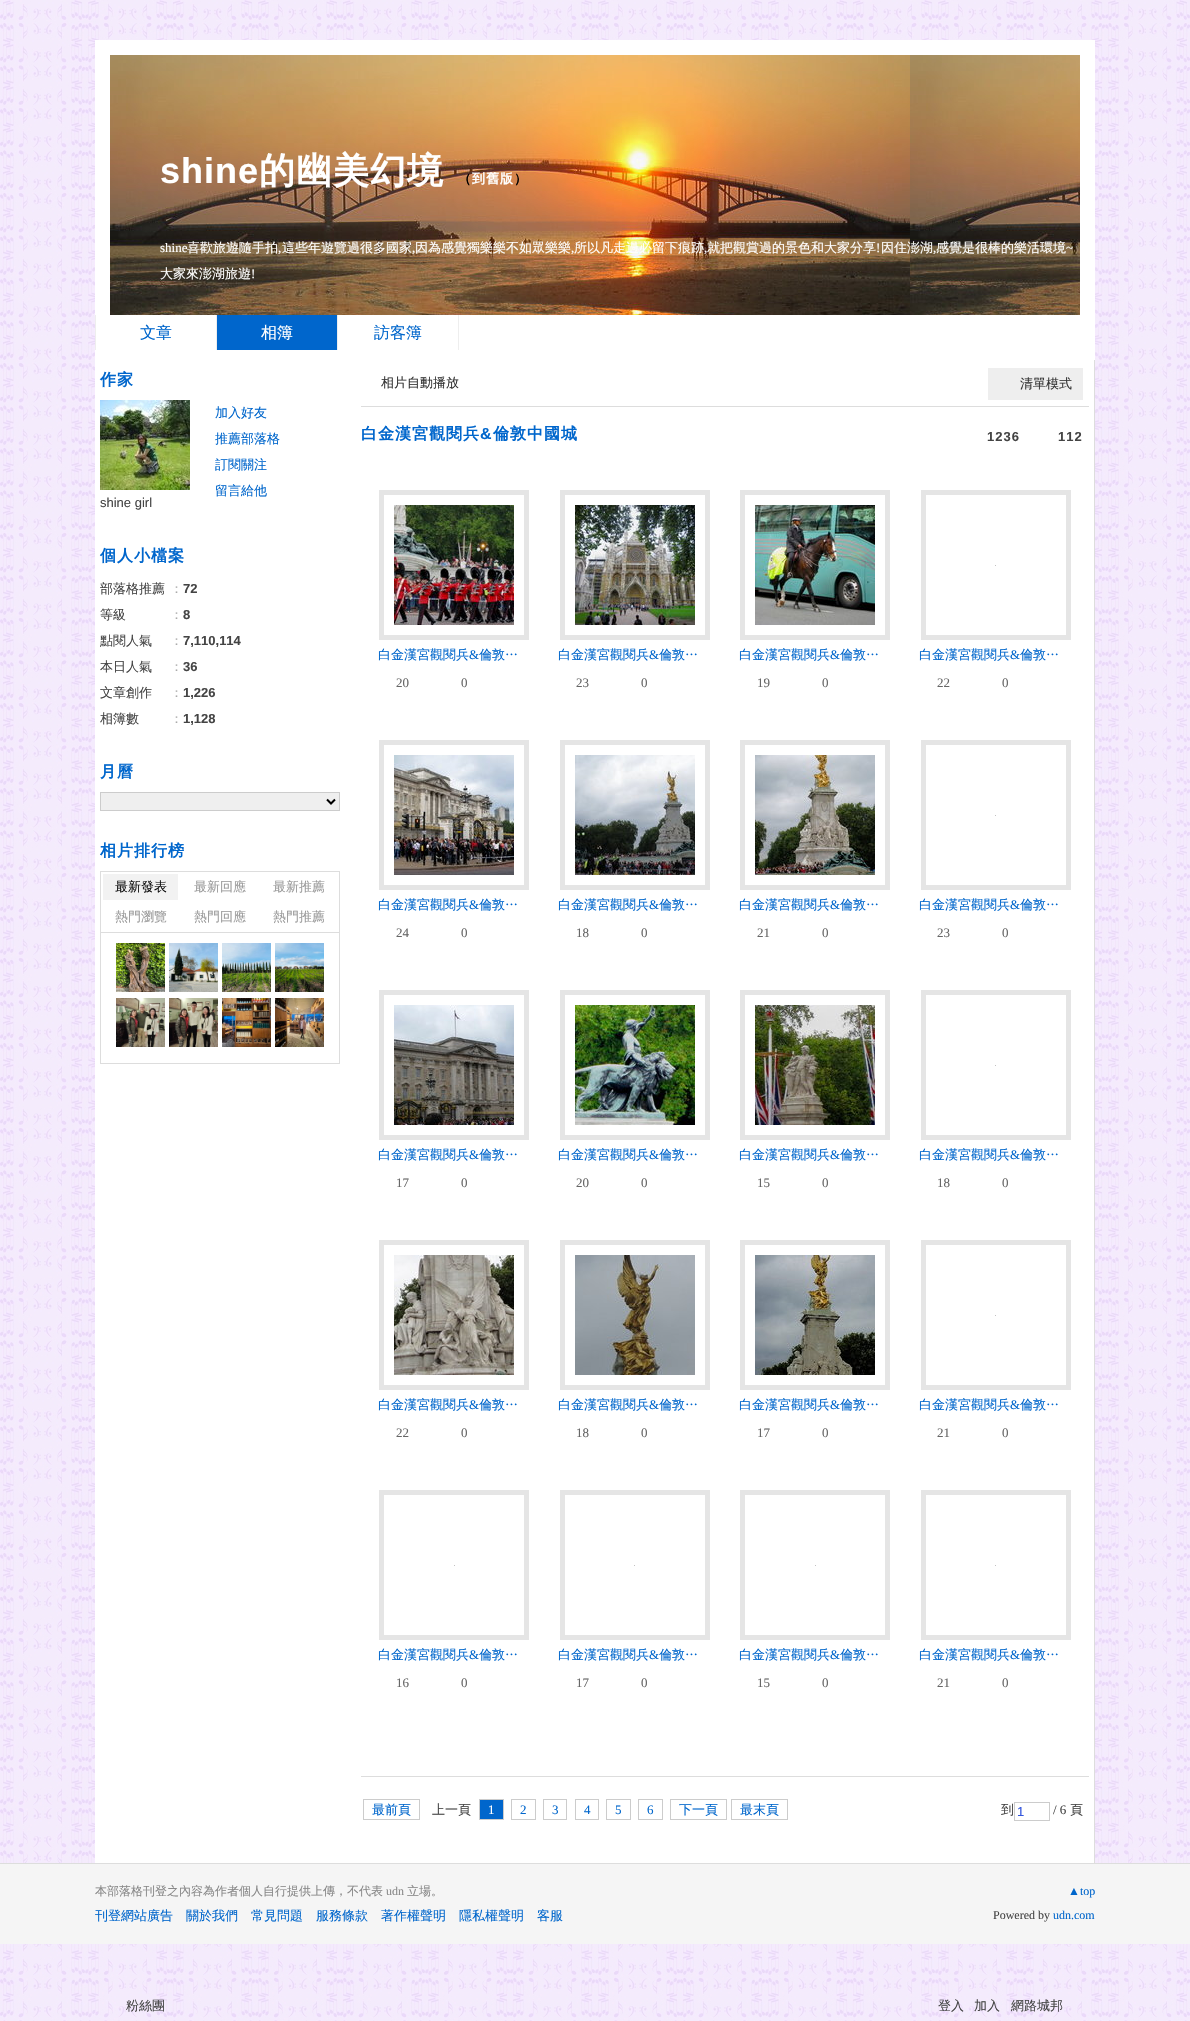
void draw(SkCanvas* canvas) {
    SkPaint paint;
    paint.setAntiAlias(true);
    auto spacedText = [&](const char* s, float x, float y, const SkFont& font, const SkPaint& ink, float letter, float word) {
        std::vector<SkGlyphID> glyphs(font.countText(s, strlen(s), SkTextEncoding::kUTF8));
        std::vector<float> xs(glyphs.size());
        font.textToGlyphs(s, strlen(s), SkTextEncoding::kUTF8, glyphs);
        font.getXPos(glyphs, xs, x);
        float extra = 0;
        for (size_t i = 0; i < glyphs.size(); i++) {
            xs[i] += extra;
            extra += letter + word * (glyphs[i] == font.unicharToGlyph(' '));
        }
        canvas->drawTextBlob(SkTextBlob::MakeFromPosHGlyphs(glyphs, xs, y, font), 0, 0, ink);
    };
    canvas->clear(0xFFFFFFFF);
    canvas->drawImageRect(SkImages::DeferredFromEncodedData(SkData::MakeFromFileName("img1.png")), SkRect::MakeXYWH(0, 0, 1190, 2021), SkSamplingOptions());
    canvas->drawImageRect(SkImages::DeferredFromEncodedData(SkData::MakeFromFileName("img2.png")), SkRect::MakeXYWH(110, 55, 970, 260), SkSamplingOptions());
    paint.setStyle(SkPaint::kStroke_Style);
    paint.setStrokeWidth(15);
    paint.setColor(0xFFFFFFFF);
    canvas->drawRect(SkRect::MakeXYWH(102.5f, 47.5f, 985, 295), paint);
    SkFont font1(fontMgr->matchFamilyStyle("Liberation Sans", SkFontStyle::Bold()), 36);
    font1.setSubpixel(true);
    paint.setStyle(SkPaint::kFill_Style);
    spacedText("shine", 160, 183, font1, paint, 1, 0);
    SkFont font2(fontMgr->matchFamilyStyle("WenQuanYi Zen Hei", SkFontStyle::Bold()), 36);
    font2.setSubpixel(true);
    spacedText("的幽美幻境", 259, 183, font2, paint, 1, 0);
    SkFont font3(fontMgr->matchFamilyStyle("WenQuanYi Zen Hei", SkFontStyle::Bold()), 13);
    font3.setSubpixel(true);
    paint.setColor(0xFF000000);
    spacedText("（", 458, 183, font3, paint, 1, 0);
    paint.setColor(0xFFFFFFFF);
    spacedText("到舊版", 472, 183, font3, paint, 1, 0);
    paint.setColor(0xFF000000);
    spacedText("）", 514, 183, font3, paint, 1, 0);
    SkFont font4(fontMgr->matchFamilyStyle("Liberation Serif", SkFontStyle::Normal()), 13);
    font4.setSubpixel(true);
    paint.setColor(0xFFFFFFFF);
    canvas->drawString("shine", 160, 252, font4, paint);
    SkFont font5(fontMgr->matchFamilyStyle("WenQuanYi Zen Hei", SkFontStyle(500, SkFontStyle::kNormal_Width, SkFontStyle::kUpright_Slant)), 13);
    font5.setSubpixel(true);
    canvas->drawString("喜歡旅遊隨手拍", 187, 252, font5, paint);
    canvas->drawString("這些年遊覽過很多國家", 282, 252, font5, paint);
    canvas->drawString("因為感覺獨樂樂不如眾樂樂", 415, 252, font5, paint);
    canvas->drawString("所以凡走過必留下痕跡", 574, 252, font5, paint);
    canvas->drawString("就把觀賞過的景色和大家分享", 707, 252, font5, paint);
    canvas->drawString("!", 876, 252, font4, paint);
    canvas->drawString("因住澎湖", 881, 252, font5, paint);
    canvas->drawString("感覺是很棒的樂活環境", 936, 252, font5, paint);
    canvas->drawString("~", 1066, 252, font4, paint);
    canvas->drawString(",", 278, 252, font4, paint);
    canvas->drawString(",", 412, 252, font4, paint);
    canvas->drawString(",", 571, 252, font4, paint);
    canvas->drawString(",", 704, 252, font4, paint);
    canvas->drawString(",", 933, 252, font4, paint);
    canvas->drawString("大家來澎湖旅遊", 160, 278, font5, paint);
    canvas->drawString("!", 251, 278, font4, paint);
    canvas->drawRect(SkRect::MakeXYWH(95, 315, 1000, 45), paint);
    paint.setColor(0xFFEEEEEE);
    canvas->drawRect(SkRect::MakeXYWH(95, 315, 1, 35), paint);
    canvas->drawRect(SkRect::MakeXYWH(216, 315, 1, 35), paint);
    SkFont font6(fontMgr->matchFamilyStyle("WenQuanYi Zen Hei", SkFontStyle(500, SkFontStyle::kNormal_Width, SkFontStyle::kUpright_Slant)), 16);
    font6.setSubpixel(true);
    paint.setColor(0xFF0066CC);
    canvas->drawString("文章", 140, 338, font6, paint);
    paint.setColor(0xFFEEEEEE);
    canvas->drawRect(SkRect::MakeXYWH(337, 315, 1, 35), paint);
    paint.setColor(0xFF0066CC);
    canvas->drawRect(SkRect::MakeXYWH(217, 315, 120, 35), paint);
    paint.setColor(0xFFFFFFFF);
    canvas->drawString("相簿", 261, 338, font6, paint);
    paint.setColor(0xFFEEEEEE);
    canvas->drawRect(SkRect::MakeXYWH(458, 315, 1, 35), paint);
    paint.setColor(0xFF0066CC);
    canvas->drawString("訪客簿", 374, 338, font6, paint);
    paint.setColor(0xFFFFFFFF);
    canvas->drawRect(SkRect::MakeXYWH(95, 360, 999, 1503), paint);
    SkFont font7(fontMgr->matchFamilyStyle("WenQuanYi Zen Hei", SkFontStyle::Bold()), 16);
    font7.setSubpixel(true);
    paint.setColor(0xFF0066CC);
    spacedText("作家", 100, 385, font7, paint, 1, 0);
    canvas->drawString("加入好友", 215, 417, font5, paint);
    canvas->drawString("推薦部落格", 215, 443, font5, paint);
    canvas->drawString("訂閱關注", 215, 469, font5, paint);
    canvas->drawString("留言給他", 215, 495, font5, paint);
    canvas->drawImageRect(SkImages::DeferredFromEncodedData(SkData::MakeFromFileName("img3.png")), SkRect::MakeXYWH(100, 400, 90, 90), SkSamplingOptions());
    SkFont font8(fontMgr->matchFamilyStyle("Liberation Sans", SkFontStyle::Normal()), 13);
    font8.setSubpixel(true);
    paint.setColor(0xFF444444);
    canvas->drawString("shine girl", 100, 507, font8, paint);
    paint.setColor(0xFF0066CC);
    spacedText("個人小檔案", 100, 561, font7, paint, 1, 0);
    paint.setColor(0xFF444444);
    canvas->drawString("部落格推薦", 100, 593, font5, paint);
    paint.setColor(0xFFAAAAAA);
    canvas->drawString("：", 170, 593, font5, paint);
    SkFont font9(fontMgr->matchFamilyStyle("Liberation Sans", SkFontStyle::Bold()), 13);
    font9.setSubpixel(true);
    paint.setColor(0xFF444444);
    canvas->drawString("72", 183, 593, font9, paint);
    canvas->drawString("等級", 100, 619, font5, paint);
    paint.setColor(0xFFAAAAAA);
    canvas->drawString("：", 170, 619, font5, paint);
    paint.setColor(0xFF444444);
    canvas->drawString("8", 183, 619, font9, paint);
    canvas->drawString("點閱人氣", 100, 645, font5, paint);
    paint.setColor(0xFFAAAAAA);
    canvas->drawString("：", 170, 645, font5, paint);
    paint.setColor(0xFF444444);
    canvas->drawString("7,110,114", 183, 645, font9, paint);
    canvas->drawString("本日人氣", 100, 671, font5, paint);
    paint.setColor(0xFFAAAAAA);
    canvas->drawString("：", 170, 671, font5, paint);
    paint.setColor(0xFF444444);
    canvas->drawString("36", 183, 671, font9, paint);
    canvas->drawString("文章創作", 100, 697, font5, paint);
    paint.setColor(0xFFAAAAAA);
    canvas->drawString("：", 170, 697, font5, paint);
    paint.setColor(0xFF444444);
    canvas->drawString("1,226", 183, 697, font9, paint);
    canvas->drawString("相簿數", 100, 723, font5, paint);
    paint.setColor(0xFFAAAAAA);
    canvas->drawString("：", 170, 723, font5, paint);
    paint.setColor(0xFF444444);
    canvas->drawString("1,128", 183, 723, font9, paint);
    paint.setColor(0xFF0066CC);
    spacedText("月曆", 100, 777, font7, paint, 1, 0);
    paint.setColor(0xFFEFEFEF);
    canvas->drawRect(SkRect::MakeXYWH(100.5f, 792.5f, 239, 18), paint);
    paint.setStyle(SkPaint::kStroke_Style);
    paint.setStrokeWidth(1);
    paint.setColor(0xFFCCCCCC);
    canvas->drawRect(SkRect::MakeXYWH(100.5f, 792.5f, 239, 18), paint);
    paint.setStrokeWidth(2);
    paint.setColor(0xFF000000);
    canvas->drawPath(SkPathBuilder().moveTo(327, 799.5f).lineTo(331, 803.5f).lineTo(335, 799.5f).detach(), paint);
    paint.setStyle(SkPaint::kFill_Style);
    paint.setColor(0xFF0066CC);
    spacedText("相片排行榜", 100, 856, font7, paint, 1, 0);
    paint.setStyle(SkPaint::kStroke_Style);
    paint.setStrokeWidth(1);
    paint.setColor(0xFFDDDDDD);
    canvas->drawRect(SkRect::MakeXYWH(100.5f, 871.5f, 239, 61), paint);
    paint.setStyle(SkPaint::kFill_Style);
    paint.setColor(0xFFF2F2F2);
    canvas->drawRect(SkRect::MakeXYWH(103, 874, 75, 26), paint);
    paint.setColor(0xFF111111);
    canvas->drawString("最新發表", 115, 891, font5, paint);
    paint.setColor(0xFF999999);
    canvas->drawString("最新回應", 194, 891, font5, paint);
    canvas->drawString("最新推薦", 273, 891, font5, paint);
    canvas->drawString("熱門瀏覽", 115, 921, font5, paint);
    canvas->drawString("熱門回應", 194, 921, font5, paint);
    canvas->drawString("熱門推薦", 273, 921, font5, paint);
    paint.setColor(0xFFDDDDDD);
    canvas->drawRect(SkRect::MakeXYWH(339, 933, 1, 131), paint);
    canvas->drawRect(SkRect::MakeXYWH(100, 1063, 240, 1), paint);
    canvas->drawRect(SkRect::MakeXYWH(100, 933, 1, 131), paint);
    canvas->drawImageRect(SkImages::DeferredFromEncodedData(SkData::MakeFromFileName("img4.png")), SkRect::MakeXYWH(116, 943, 49, 49), SkSamplingOptions());
    canvas->drawImageRect(SkImages::DeferredFromEncodedData(SkData::MakeFromFileName("img5.png")), SkRect::MakeXYWH(169, 943, 49, 49), SkSamplingOptions());
    canvas->drawImageRect(SkImages::DeferredFromEncodedData(SkData::MakeFromFileName("img6.png")), SkRect::MakeXYWH(222, 943, 49, 49), SkSamplingOptions());
    canvas->drawImageRect(SkImages::DeferredFromEncodedData(SkData::MakeFromFileName("img7.png")), SkRect::MakeXYWH(275, 943, 49, 49), SkSamplingOptions());
    canvas->drawImageRect(SkImages::DeferredFromEncodedData(SkData::MakeFromFileName("img8.png")), SkRect::MakeXYWH(116, 998, 49, 49), SkSamplingOptions());
    canvas->drawImageRect(SkImages::DeferredFromEncodedData(SkData::MakeFromFileName("img9.png")), SkRect::MakeXYWH(169, 998, 49, 49), SkSamplingOptions());
    canvas->drawImageRect(SkImages::DeferredFromEncodedData(SkData::MakeFromFileName("img10.png")), SkRect::MakeXYWH(222, 998, 49, 49), SkSamplingOptions());
    canvas->drawImageRect(SkImages::DeferredFromEncodedData(SkData::MakeFromFileName("img11.png")), SkRect::MakeXYWH(275, 998, 49, 49), SkSamplingOptions());
    canvas->drawRect(SkRect::MakeXYWH(1094, 360, 1, 1503), paint);
    canvas->drawRect(SkRect::MakeXYWH(361, 406, 728, 1), paint);
    paint.setColor(0xFF333333);
    canvas->drawString("相片自動播放", 381, 387, font5, paint);
    paint.setColor(0xFFEEEEEE);
    canvas->drawRect(SkRect::MakeXYWH(988, 368, 95, 32), paint);
    paint.setColor(0xFF333333);
    canvas->drawString("清單模式", 1020, 388, font5, paint);
    paint.setColor(0xFF0066CC);
    spacedText("白金漢宮觀閱兵", 361, 439, font7, paint, 1, 0);
    SkFont font10(fontMgr->matchFamilyStyle("Liberation Sans", SkFontStyle::Bold()), 16);
    font10.setSubpixel(true);
    spacedText("&", 480, 439, font10, paint, 1, 0);
    spacedText("倫敦中國城", 493, 439, font7, paint, 1, 0);
    paint.setColor(0xFF444444);
    spacedText("1236", 987, 441, font9, paint, 1, 0);
    spacedText("112", 1058, 441, font9, paint, 1, 0);
    paint.setStyle(SkPaint::kStroke_Style);
    paint.setStrokeWidth(5);
    paint.setColor(0xFFE5E5E5);
    canvas->drawRect(SkRect::MakeXYWH(381.5f, 492.5f, 145, 145), paint);
    canvas->drawImageRect(SkImages::DeferredFromEncodedData(SkData::MakeFromFileName("img12.png")), SkRect::MakeXYWH(394, 505, 120, 120), SkSamplingOptions());
    paint.setStyle(SkPaint::kFill_Style);
    paint.setColor(0xFF0066CC);
    canvas->drawString("白金漢宮觀閱兵", 378, 659, font5, paint);
    canvas->drawString("&", 469, 659, font4, paint);
    canvas->drawString("倫敦…", 479, 659, font5, paint);
    paint.setColor(0xFF666666);
    canvas->drawString("20", 396, 687, font4, paint);
    canvas->drawString("0", 461, 687, font4, paint);
    paint.setStyle(SkPaint::kStroke_Style);
    paint.setColor(0xFFE5E5E5);
    canvas->drawRect(SkRect::MakeXYWH(562.5f, 492.5f, 145, 145), paint);
    canvas->drawImageRect(SkImages::DeferredFromEncodedData(SkData::MakeFromFileName("img13.png")), SkRect::MakeXYWH(575, 505, 120, 120), SkSamplingOptions());
    paint.setStyle(SkPaint::kFill_Style);
    paint.setColor(0xFF0066CC);
    canvas->drawString("白金漢宮觀閱兵", 558, 659, font5, paint);
    canvas->drawString("&", 649, 659, font4, paint);
    canvas->drawString("倫敦…", 659, 659, font5, paint);
    paint.setColor(0xFF666666);
    canvas->drawString("23", 576, 687, font4, paint);
    canvas->drawString("0", 641, 687, font4, paint);
    paint.setStyle(SkPaint::kStroke_Style);
    paint.setColor(0xFFE5E5E5);
    canvas->drawRect(SkRect::MakeXYWH(742.5f, 492.5f, 145, 145), paint);
    canvas->drawImageRect(SkImages::DeferredFromEncodedData(SkData::MakeFromFileName("img14.png")), SkRect::MakeXYWH(755, 505, 120, 120), SkSamplingOptions());
    paint.setStyle(SkPaint::kFill_Style);
    paint.setColor(0xFF0066CC);
    canvas->drawString("白金漢宮觀閱兵", 739, 659, font5, paint);
    canvas->drawString("&", 830, 659, font4, paint);
    canvas->drawString("倫敦…", 840, 659, font5, paint);
    paint.setColor(0xFF666666);
    canvas->drawString("19", 757, 687, font4, paint);
    canvas->drawString("0", 822, 687, font4, paint);
    paint.setStyle(SkPaint::kStroke_Style);
    paint.setColor(0xFFE5E5E5);
    canvas->drawRect(SkRect::MakeXYWH(923.5f, 492.5f, 145, 145), paint);
    paint.setStyle(SkPaint::kFill_Style);
    paint.setColor(0xFFC2C2C2);
    canvas->drawRect(SkRect::MakeXYWH(995, 565, 1, 1), paint);
    paint.setColor(0xFF0066CC);
    canvas->drawString("白金漢宮觀閱兵", 919, 659, font5, paint);
    canvas->drawString("&", 1010, 659, font4, paint);
    canvas->drawString("倫敦…", 1020, 659, font5, paint);
    paint.setColor(0xFF666666);
    canvas->drawString("22", 937, 687, font4, paint);
    canvas->drawString("0", 1002, 687, font4, paint);
    paint.setStyle(SkPaint::kStroke_Style);
    paint.setColor(0xFFE5E5E5);
    canvas->drawRect(SkRect::MakeXYWH(381.5f, 742.5f, 145, 145), paint);
    canvas->drawImageRect(SkImages::DeferredFromEncodedData(SkData::MakeFromFileName("img15.png")), SkRect::MakeXYWH(394, 755, 120, 120), SkSamplingOptions());
    paint.setStyle(SkPaint::kFill_Style);
    paint.setColor(0xFF0066CC);
    canvas->drawString("白金漢宮觀閱兵", 378, 909, font5, paint);
    canvas->drawString("&", 469, 909, font4, paint);
    canvas->drawString("倫敦…", 479, 909, font5, paint);
    paint.setColor(0xFF666666);
    canvas->drawString("24", 396, 937, font4, paint);
    canvas->drawString("0", 461, 937, font4, paint);
    paint.setStyle(SkPaint::kStroke_Style);
    paint.setColor(0xFFE5E5E5);
    canvas->drawRect(SkRect::MakeXYWH(562.5f, 742.5f, 145, 145), paint);
    canvas->drawImageRect(SkImages::DeferredFromEncodedData(SkData::MakeFromFileName("img16.png")), SkRect::MakeXYWH(575, 755, 120, 120), SkSamplingOptions());
    paint.setStyle(SkPaint::kFill_Style);
    paint.setColor(0xFF0066CC);
    canvas->drawString("白金漢宮觀閱兵", 558, 909, font5, paint);
    canvas->drawString("&", 649, 909, font4, paint);
    canvas->drawString("倫敦…", 659, 909, font5, paint);
    paint.setColor(0xFF666666);
    canvas->drawString("18", 576, 937, font4, paint);
    canvas->drawString("0", 641, 937, font4, paint);
    paint.setStyle(SkPaint::kStroke_Style);
    paint.setColor(0xFFE5E5E5);
    canvas->drawRect(SkRect::MakeXYWH(742.5f, 742.5f, 145, 145), paint);
    canvas->drawImageRect(SkImages::DeferredFromEncodedData(SkData::MakeFromFileName("img17.png")), SkRect::MakeXYWH(755, 755, 120, 120), SkSamplingOptions());
    paint.setStyle(SkPaint::kFill_Style);
    paint.setColor(0xFF0066CC);
    canvas->drawString("白金漢宮觀閱兵", 739, 909, font5, paint);
    canvas->drawString("&", 830, 909, font4, paint);
    canvas->drawString("倫敦…", 840, 909, font5, paint);
    paint.setColor(0xFF666666);
    canvas->drawString("21", 757, 937, font4, paint);
    canvas->drawString("0", 822, 937, font4, paint);
    paint.setStyle(SkPaint::kStroke_Style);
    paint.setColor(0xFFE5E5E5);
    canvas->drawRect(SkRect::MakeXYWH(923.5f, 742.5f, 145, 145), paint);
    paint.setStyle(SkPaint::kFill_Style);
    paint.setColor(0xFFC2C2C2);
    canvas->drawRect(SkRect::MakeXYWH(995, 815, 1, 1), paint);
    paint.setColor(0xFF0066CC);
    canvas->drawString("白金漢宮觀閱兵", 919, 909, font5, paint);
    canvas->drawString("&", 1010, 909, font4, paint);
    canvas->drawString("倫敦…", 1020, 909, font5, paint);
    paint.setColor(0xFF666666);
    canvas->drawString("23", 937, 937, font4, paint);
    canvas->drawString("0", 1002, 937, font4, paint);
    paint.setStyle(SkPaint::kStroke_Style);
    paint.setColor(0xFFE5E5E5);
    canvas->drawRect(SkRect::MakeXYWH(381.5f, 992.5f, 145, 145), paint);
    canvas->drawImageRect(SkImages::DeferredFromEncodedData(SkData::MakeFromFileName("img18.png")), SkRect::MakeXYWH(394, 1005, 120, 120), SkSamplingOptions());
    paint.setStyle(SkPaint::kFill_Style);
    paint.setColor(0xFF0066CC);
    canvas->drawString("白金漢宮觀閱兵", 378, 1159, font5, paint);
    canvas->drawString("&", 469, 1159, font4, paint);
    canvas->drawString("倫敦…", 479, 1159, font5, paint);
    paint.setColor(0xFF666666);
    canvas->drawString("17", 396, 1187, font4, paint);
    canvas->drawString("0", 461, 1187, font4, paint);
    paint.setStyle(SkPaint::kStroke_Style);
    paint.setColor(0xFFE5E5E5);
    canvas->drawRect(SkRect::MakeXYWH(562.5f, 992.5f, 145, 145), paint);
    canvas->drawImageRect(SkImages::DeferredFromEncodedData(SkData::MakeFromFileName("img19.png")), SkRect::MakeXYWH(575, 1005, 120, 120), SkSamplingOptions());
    paint.setStyle(SkPaint::kFill_Style);
    paint.setColor(0xFF0066CC);
    canvas->drawString("白金漢宮觀閱兵", 558, 1159, font5, paint);
    canvas->drawString("&", 649, 1159, font4, paint);
    canvas->drawString("倫敦…", 659, 1159, font5, paint);
    paint.setColor(0xFF666666);
    canvas->drawString("20", 576, 1187, font4, paint);
    canvas->drawString("0", 641, 1187, font4, paint);
    paint.setStyle(SkPaint::kStroke_Style);
    paint.setColor(0xFFE5E5E5);
    canvas->drawRect(SkRect::MakeXYWH(742.5f, 992.5f, 145, 145), paint);
    canvas->drawImageRect(SkImages::DeferredFromEncodedData(SkData::MakeFromFileName("img20.png")), SkRect::MakeXYWH(755, 1005, 120, 120), SkSamplingOptions());
    paint.setStyle(SkPaint::kFill_Style);
    paint.setColor(0xFF0066CC);
    canvas->drawString("白金漢宮觀閱兵", 739, 1159, font5, paint);
    canvas->drawString("&", 830, 1159, font4, paint);
    canvas->drawString("倫敦…", 840, 1159, font5, paint);
    paint.setColor(0xFF666666);
    canvas->drawString("15", 757, 1187, font4, paint);
    canvas->drawString("0", 822, 1187, font4, paint);
    paint.setStyle(SkPaint::kStroke_Style);
    paint.setColor(0xFFE5E5E5);
    canvas->drawRect(SkRect::MakeXYWH(923.5f, 992.5f, 145, 145), paint);
    paint.setStyle(SkPaint::kFill_Style);
    paint.setColor(0xFFC2C2C2);
    canvas->drawRect(SkRect::MakeXYWH(995, 1065, 1, 1), paint);
    paint.setColor(0xFF0066CC);
    canvas->drawString("白金漢宮觀閱兵", 919, 1159, font5, paint);
    canvas->drawString("&", 1010, 1159, font4, paint);
    canvas->drawString("倫敦…", 1020, 1159, font5, paint);
    paint.setColor(0xFF666666);
    canvas->drawString("18", 937, 1187, font4, paint);
    canvas->drawString("0", 1002, 1187, font4, paint);
    paint.setStyle(SkPaint::kStroke_Style);
    paint.setColor(0xFFE5E5E5);
    canvas->drawRect(SkRect::MakeXYWH(381.5f, 1242.5f, 145, 145), paint);
    canvas->drawImageRect(SkImages::DeferredFromEncodedData(SkData::MakeFromFileName("img21.png")), SkRect::MakeXYWH(394, 1255, 120, 120), SkSamplingOptions());
    paint.setStyle(SkPaint::kFill_Style);
    paint.setColor(0xFF0066CC);
    canvas->drawString("白金漢宮觀閱兵", 378, 1409, font5, paint);
    canvas->drawString("&", 469, 1409, font4, paint);
    canvas->drawString("倫敦…", 479, 1409, font5, paint);
    paint.setColor(0xFF666666);
    canvas->drawString("22", 396, 1437, font4, paint);
    canvas->drawString("0", 461, 1437, font4, paint);
    paint.setStyle(SkPaint::kStroke_Style);
    paint.setColor(0xFFE5E5E5);
    canvas->drawRect(SkRect::MakeXYWH(562.5f, 1242.5f, 145, 145), paint);
    canvas->drawImageRect(SkImages::DeferredFromEncodedData(SkData::MakeFromFileName("img22.png")), SkRect::MakeXYWH(575, 1255, 120, 120), SkSamplingOptions());
    paint.setStyle(SkPaint::kFill_Style);
    paint.setColor(0xFF0066CC);
    canvas->drawString("白金漢宮觀閱兵", 558, 1409, font5, paint);
    canvas->drawString("&", 649, 1409, font4, paint);
    canvas->drawString("倫敦…", 659, 1409, font5, paint);
    paint.setColor(0xFF666666);
    canvas->drawString("18", 576, 1437, font4, paint);
    canvas->drawString("0", 641, 1437, font4, paint);
    paint.setStyle(SkPaint::kStroke_Style);
    paint.setColor(0xFFE5E5E5);
    canvas->drawRect(SkRect::MakeXYWH(742.5f, 1242.5f, 145, 145), paint);
    canvas->drawImageRect(SkImages::DeferredFromEncodedData(SkData::MakeFromFileName("img23.png")), SkRect::MakeXYWH(755, 1255, 120, 120), SkSamplingOptions());
    paint.setStyle(SkPaint::kFill_Style);
    paint.setColor(0xFF0066CC);
    canvas->drawString("白金漢宮觀閱兵", 739, 1409, font5, paint);
    canvas->drawString("&", 830, 1409, font4, paint);
    canvas->drawString("倫敦…", 840, 1409, font5, paint);
    paint.setColor(0xFF666666);
    canvas->drawString("17", 757, 1437, font4, paint);
    canvas->drawString("0", 822, 1437, font4, paint);
    paint.setStyle(SkPaint::kStroke_Style);
    paint.setColor(0xFFE5E5E5);
    canvas->drawRect(SkRect::MakeXYWH(923.5f, 1242.5f, 145, 145), paint);
    paint.setStyle(SkPaint::kFill_Style);
    paint.setColor(0xFFC2C2C2);
    canvas->drawRect(SkRect::MakeXYWH(995, 1315, 1, 1), paint);
    paint.setColor(0xFF0066CC);
    canvas->drawString("白金漢宮觀閱兵", 919, 1409, font5, paint);
    canvas->drawString("&", 1010, 1409, font4, paint);
    canvas->drawString("倫敦…", 1020, 1409, font5, paint);
    paint.setColor(0xFF666666);
    canvas->drawString("21", 937, 1437, font4, paint);
    canvas->drawString("0", 1002, 1437, font4, paint);
    paint.setStyle(SkPaint::kStroke_Style);
    paint.setColor(0xFFE5E5E5);
    canvas->drawRect(SkRect::MakeXYWH(381.5f, 1492.5f, 145, 145), paint);
    paint.setStyle(SkPaint::kFill_Style);
    paint.setColor(0xFFC2C2C2);
    canvas->drawRect(SkRect::MakeXYWH(454, 1565, 1, 1), paint);
    paint.setColor(0xFF0066CC);
    canvas->drawString("白金漢宮觀閱兵", 378, 1659, font5, paint);
    canvas->drawString("&", 469, 1659, font4, paint);
    canvas->drawString("倫敦…", 479, 1659, font5, paint);
    paint.setColor(0xFF666666);
    canvas->drawString("16", 396, 1687, font4, paint);
    canvas->drawString("0", 461, 1687, font4, paint);
    paint.setStyle(SkPaint::kStroke_Style);
    paint.setColor(0xFFE5E5E5);
    canvas->drawRect(SkRect::MakeXYWH(562.5f, 1492.5f, 145, 145), paint);
    paint.setStyle(SkPaint::kFill_Style);
    paint.setColor(0xFFC2C2C2);
    canvas->drawRect(SkRect::MakeXYWH(634, 1565, 1, 1), paint);
    paint.setColor(0xFF0066CC);
    canvas->drawString("白金漢宮觀閱兵", 558, 1659, font5, paint);
    canvas->drawString("&", 649, 1659, font4, paint);
    canvas->drawString("倫敦…", 659, 1659, font5, paint);
    paint.setColor(0xFF666666);
    canvas->drawString("17", 576, 1687, font4, paint);
    canvas->drawString("0", 641, 1687, font4, paint);
    paint.setStyle(SkPaint::kStroke_Style);
    paint.setColor(0xFFE5E5E5);
    canvas->drawRect(SkRect::MakeXYWH(742.5f, 1492.5f, 145, 145), paint);
    paint.setStyle(SkPaint::kFill_Style);
    paint.setColor(0xFFC2C2C2);
    canvas->drawRect(SkRect::MakeXYWH(815, 1565, 1, 1), paint);
    paint.setColor(0xFF0066CC);
    canvas->drawString("白金漢宮觀閱兵", 739, 1659, font5, paint);
    canvas->drawString("&", 830, 1659, font4, paint);
    canvas->drawString("倫敦…", 840, 1659, font5, paint);
    paint.setColor(0xFF666666);
    canvas->drawString("15", 757, 1687, font4, paint);
    canvas->drawString("0", 822, 1687, font4, paint);
    paint.setStyle(SkPaint::kStroke_Style);
    paint.setColor(0xFFE5E5E5);
    canvas->drawRect(SkRect::MakeXYWH(923.5f, 1492.5f, 145, 145), paint);
    paint.setStyle(SkPaint::kFill_Style);
    paint.setColor(0xFFC2C2C2);
    canvas->drawRect(SkRect::MakeXYWH(995, 1565, 1, 1), paint);
    paint.setColor(0xFF0066CC);
    canvas->drawString("白金漢宮觀閱兵", 919, 1659, font5, paint);
    canvas->drawString("&", 1010, 1659, font4, paint);
    canvas->drawString("倫敦…", 1020, 1659, font5, paint);
    paint.setColor(0xFF666666);
    canvas->drawString("21", 937, 1687, font4, paint);
    canvas->drawString("0", 1002, 1687, font4, paint);
    paint.setColor(0xFFDDDDDD);
    canvas->drawRect(SkRect::MakeXYWH(361, 1776, 728, 1), paint);
    paint.setStyle(SkPaint::kStroke_Style);
    paint.setStrokeWidth(1);
    paint.setColor(0xFFCCCCCC);
    canvas->drawRect(SkRect::MakeXYWH(363.5f, 1799.5f, 56, 20), paint);
    paint.setStyle(SkPaint::kFill_Style);
    paint.setColor(0xFF0066CC);
    canvas->drawString("最前頁", 372, 1814, font5, paint);
    paint.setColor(0xFF444444);
    canvas->drawString("上一頁", 432, 1814, font5, paint);
    paint.setColor(0xFF0066CC);
    canvas->drawRect(SkRect::MakeXYWH(479.5f, 1799.5f, 24, 20), paint);
    paint.setStyle(SkPaint::kStroke_Style);
    paint.setColor(0xFFCCCCCC);
    canvas->drawRect(SkRect::MakeXYWH(479.5f, 1799.5f, 24, 20), paint);
    paint.setStyle(SkPaint::kFill_Style);
    paint.setColor(0xFFFFFFFF);
    canvas->drawString("1", 488, 1814, font4, paint);
    paint.setStyle(SkPaint::kStroke_Style);
    paint.setColor(0xFFCCCCCC);
    canvas->drawRect(SkRect::MakeXYWH(511.5f, 1799.5f, 24, 20), paint);
    paint.setStyle(SkPaint::kFill_Style);
    paint.setColor(0xFF0066CC);
    canvas->drawString("2", 520, 1814, font4, paint);
    paint.setStyle(SkPaint::kStroke_Style);
    paint.setColor(0xFFCCCCCC);
    canvas->drawRect(SkRect::MakeXYWH(543.5f, 1799.5f, 23, 20), paint);
    paint.setStyle(SkPaint::kFill_Style);
    paint.setColor(0xFF0066CC);
    canvas->drawString("3", 552, 1814, font4, paint);
    paint.setStyle(SkPaint::kStroke_Style);
    paint.setColor(0xFFCCCCCC);
    canvas->drawRect(SkRect::MakeXYWH(575.5f, 1799.5f, 23, 20), paint);
    paint.setStyle(SkPaint::kFill_Style);
    paint.setColor(0xFF0066CC);
    canvas->drawString("4", 584, 1814, font4, paint);
    paint.setStyle(SkPaint::kStroke_Style);
    paint.setColor(0xFFCCCCCC);
    canvas->drawRect(SkRect::MakeXYWH(606.5f, 1799.5f, 24, 20), paint);
    paint.setStyle(SkPaint::kFill_Style);
    paint.setColor(0xFF0066CC);
    canvas->drawString("5", 615, 1814, font4, paint);
    paint.setStyle(SkPaint::kStroke_Style);
    paint.setColor(0xFFCCCCCC);
    canvas->drawRect(SkRect::MakeXYWH(638.5f, 1799.5f, 24, 20), paint);
    paint.setStyle(SkPaint::kFill_Style);
    paint.setColor(0xFF0066CC);
    canvas->drawString("6", 647, 1814, font4, paint);
    paint.setStyle(SkPaint::kStroke_Style);
    paint.setColor(0xFFCCCCCC);
    canvas->drawRect(SkRect::MakeXYWH(670.5f, 1799.5f, 56, 20), paint);
    paint.setStyle(SkPaint::kFill_Style);
    paint.setColor(0xFF0066CC);
    canvas->drawString("下一頁", 679, 1814, font5, paint);
    paint.setStyle(SkPaint::kStroke_Style);
    paint.setColor(0xFFCCCCCC);
    canvas->drawRect(SkRect::MakeXYWH(731.5f, 1799.5f, 56, 20), paint);
    paint.setStyle(SkPaint::kFill_Style);
    paint.setColor(0xFF0066CC);
    canvas->drawString("最末頁", 740, 1814, font5, paint);
    paint.setColor(0xFF444444);
    canvas->drawString("到", 1001, 1814, font5, paint);
    paint.setStyle(SkPaint::kStroke_Style);
    paint.setColor(0xFFCCCCCC);
    canvas->drawRect(SkRect::MakeXYWH(1014.5f, 1802.5f, 35, 18), paint);
    paint.setStyle(SkPaint::kFill_Style);
    paint.setColor(0xFF3355DD);
    canvas->drawString("1", 1017, 1816, font8, paint);
    paint.setColor(0xFF444444);
    canvas->drawString("/ 6", 1053, 1814, font4, paint);
    canvas->drawString("頁", 1070, 1814, font5, paint);
    paint.setColor(0xFFF5F5F5);
    canvas->drawRect(SkRect::MakeXYWH(0, 1864, 1190, 80), paint);
    paint.setColor(0xFFDDDDDD);
    canvas->drawRect(SkRect::MakeXYWH(0, 1863, 1190, 1), paint);
    SkFont font11(fontMgr->matchFamilyStyle("WenQuanYi Zen Hei", SkFontStyle(500, SkFontStyle::kNormal_Width, SkFontStyle::kUpright_Slant)), 12);
    font11.setSubpixel(true);
    paint.setColor(0xFF888888);
    canvas->drawString("本部落格刊登之內容為作者個人自行提供上傳，不代表", 95, 1895, font11, paint);
    SkFont font12(fontMgr->matchFamilyStyle("Liberation Serif", SkFontStyle::Normal()), 12);
    font12.setSubpixel(true);
    canvas->drawString("udn", 386, 1895, font12, paint);
    canvas->drawString("立場。", 407, 1895, font11, paint);
    paint.setColor(0xFF0066CC);
    canvas->drawString("▲top", 1068, 1895, font12, paint);
    canvas->drawString("刊登網站廣告", 95, 1920, font5, paint);
    canvas->drawString("關於我們", 186, 1920, font5, paint);
    canvas->drawString("常見問題", 251, 1920, font5, paint);
    canvas->drawString("服務條款", 316, 1920, font5, paint);
    canvas->drawString("著作權聲明", 381, 1920, font5, paint);
    canvas->drawString("隱私權聲明", 459, 1920, font5, paint);
    canvas->drawString("客服", 537, 1920, font5, paint);
    paint.setColor(0xFF444444);
    canvas->drawString("Powered by", 993, 1919, font12, paint);
    paint.setColor(0xFF0066CC);
    canvas->drawString("udn.com", 1053, 1919, font12, paint);
    paint.setColor(0xFF444444);
    canvas->drawString("粉絲團", 126, 2010, font5, paint);
    canvas->drawString("登入", 938, 2010, font5, paint);
    canvas->drawString("加入", 974, 2010, font5, paint);
    canvas->drawString("網路城邦", 1011, 2010, font5, paint);
}
